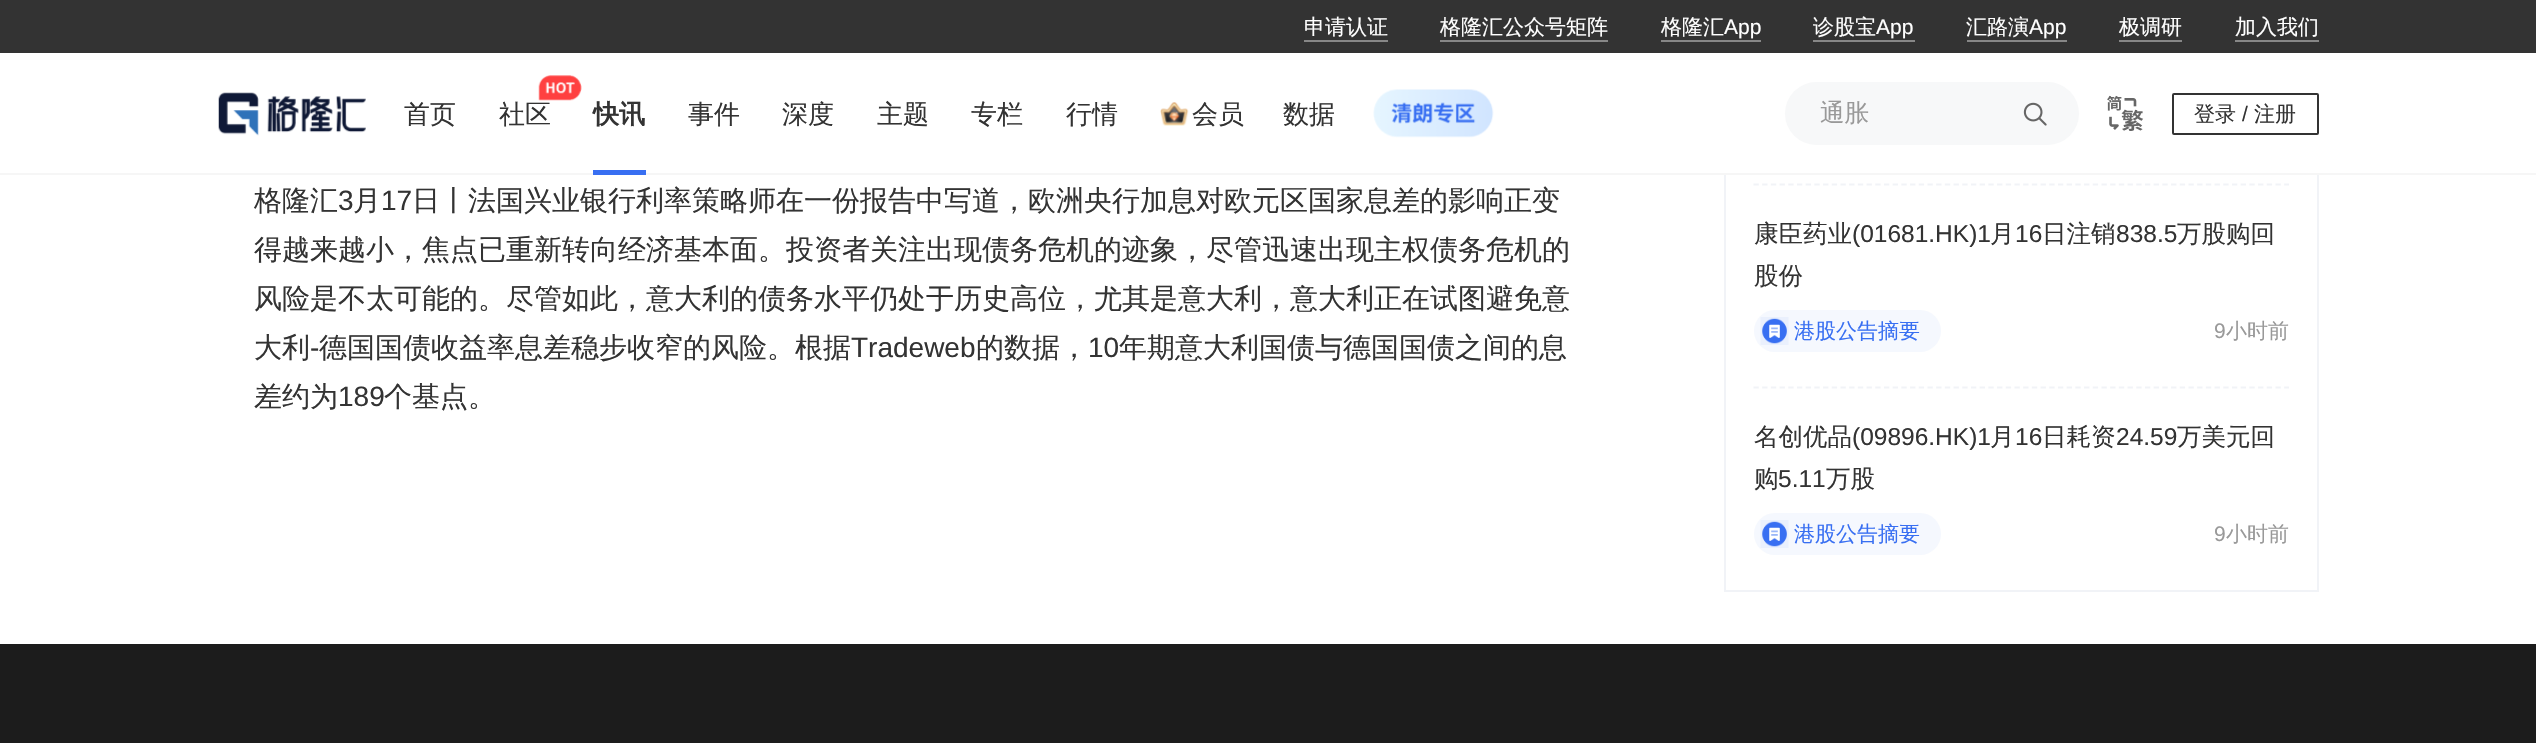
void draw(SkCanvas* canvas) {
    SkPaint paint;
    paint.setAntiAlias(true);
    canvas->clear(0xFFFFFFFF);
    paint.setColor(0xFF333333);
    canvas->drawRect(SkRect::MakeXYWH(0, 0, 2536, 53), paint);
    SkFont font1(fontMgr->matchFamilyStyle("WenQuanYi Zen Hei", SkFontStyle(500, SkFontStyle::kNormal_Width, SkFontStyle::kUpright_Slant)), 21);
    font1.setSubpixel(true);
    paint.setColor(0xFFFFFFFF);
    canvas->drawString("申请认证", 1304, 34, font1, paint);
    paint.setColor(0xFF878787);
    canvas->drawRect(SkRect::MakeXYWH(1304, 40, 84, 2), paint);
    paint.setColor(0xFFFFFFFF);
    canvas->drawString("格隆汇公众号矩阵", 1440, 34, font1, paint);
    paint.setColor(0xFF878787);
    canvas->drawRect(SkRect::MakeXYWH(1440, 40, 168, 2), paint);
    paint.setColor(0xFFFFFFFF);
    canvas->drawString("格隆汇", 1661, 34, font1, paint);
    SkFont font2(fontMgr->matchFamilyStyle("Liberation Sans", SkFontStyle::Normal()), 21);
    font2.setSubpixel(true);
    canvas->drawString("App", 1724, 34, font2, paint);
    paint.setColor(0xFF878787);
    canvas->drawRect(SkRect::MakeXYWH(1661, 40, 100, 2), paint);
    paint.setColor(0xFFFFFFFF);
    canvas->drawString("诊股宝", 1813, 34, font1, paint);
    canvas->drawString("App", 1876, 34, font2, paint);
    paint.setColor(0xFF878787);
    canvas->drawRect(SkRect::MakeXYWH(1813, 40, 102, 2), paint);
    paint.setColor(0xFFFFFFFF);
    canvas->drawString("汇路演", 1966, 34, font1, paint);
    canvas->drawString("App", 2029, 34, font2, paint);
    paint.setColor(0xFF878787);
    canvas->drawRect(SkRect::MakeXYWH(1967, 40, 100, 2), paint);
    paint.setColor(0xFFFFFFFF);
    canvas->drawString("极调研", 2119, 34, font1, paint);
    paint.setColor(0xFF878787);
    canvas->drawRect(SkRect::MakeXYWH(2119, 40, 63, 2), paint);
    paint.setColor(0xFFFFFFFF);
    canvas->drawString("加入我们", 2235, 34, font1, paint);
    paint.setColor(0xFF878787);
    canvas->drawRect(SkRect::MakeXYWH(2235, 40, 84, 2), paint);
    paint.setColor(0xFFF6F6F6);
    canvas->drawRect(SkRect::MakeXYWH(0, 173, 2536, 2), paint);
    canvas->drawImageRect(SkImages::DeferredFromEncodedData(SkData::MakeFromFileName("img1.png")), SkRect::MakeXYWH(218, 92, 148, 44), SkSamplingOptions());
    SkFont font3(fontMgr->matchFamilyStyle("WenQuanYi Zen Hei", SkFontStyle(500, SkFontStyle::kNormal_Width, SkFontStyle::kUpright_Slant)), 26);
    font3.setSubpixel(true);
    paint.setColor(0xFF333333);
    canvas->drawString("首页", 404, 123, font3, paint);
    canvas->drawImageRect(SkImages::DeferredFromEncodedData(SkData::MakeFromFileName("img2.png")), SkRect::MakeXYWH(538, 75, 44, 26), SkSamplingOptions());
    canvas->drawString("社区", 499, 123, font3, paint);
    SkFont font4(fontMgr->matchFamilyStyle("WenQuanYi Zen Hei", SkFontStyle::Bold()), 26);
    font4.setSubpixel(true);
    canvas->drawString("快讯", 593, 123, font4, paint);
    paint.setColor(0xFF386FF2);
    canvas->drawRect(SkRect::MakeXYWH(593, 170, 53, 5), paint);
    paint.setColor(0xFF333333);
    canvas->drawString("事件", 688, 123, font3, paint);
    canvas->drawString("深度", 782, 123, font3, paint);
    canvas->drawString("主题", 877, 123, font3, paint);
    canvas->drawString("专栏", 971, 123, font3, paint);
    canvas->drawString("行情", 1066, 123, font3, paint);
    canvas->drawImageRect(SkImages::DeferredFromEncodedData(SkData::MakeFromFileName("img3.png")), SkRect::MakeXYWH(1160, 102, 29, 24), SkSamplingOptions());
    canvas->drawString("会员", 1192, 123, font3, paint);
    canvas->drawString("数据", 1283, 123, font3, paint);
    canvas->drawImageRect(SkImages::DeferredFromEncodedData(SkData::MakeFromFileName("img4.png")), SkRect::MakeXYWH(1373, 89, 121, 49), SkSamplingOptions());
    paint.setColor(0xFFF7F8F9);
    canvas->drawRoundRect(SkRect::MakeXYWH(1785, 82, 294, 63), 31.5f, 31.5f, paint);
    SkFont font5(fontMgr->matchFamilyStyle("WenQuanYi Zen Hei", SkFontStyle(500, SkFontStyle::kNormal_Width, SkFontStyle::kUpright_Slant)), 24.5f);
    font5.setSubpixel(true);
    paint.setColor(0xFF999999);
    canvas->drawString("通胀", 1820, 121, font5, paint);
    canvas->drawImageRect(SkImages::DeferredFromEncodedData(SkData::MakeFromFileName("img5.png")), SkRect::MakeXYWH(2023, 102, 24, 24), SkSamplingOptions());
    canvas->drawImageRect(SkImages::DeferredFromEncodedData(SkData::MakeFromFileName("img6.png")), SkRect::MakeXYWH(2107, 95, 37, 36), SkSamplingOptions());
    paint.setStyle(SkPaint::kStroke_Style);
    paint.setStrokeWidth(2);
    paint.setColor(0xFF333333);
    canvas->drawRoundRect(SkRect::MakeXYWH(2173, 94, 145, 40), 1, 1, paint);
    paint.setStyle(SkPaint::kFill_Style);
    canvas->drawString("登录", 2194, 121, font1, paint);
    canvas->drawString("/", 2242, 121, font2, paint);
    canvas->drawString("注册", 2254, 121, font1, paint);
    SkFont font6(fontMgr->matchFamilyStyle("WenQuanYi Zen Hei", SkFontStyle(500, SkFontStyle::kNormal_Width, SkFontStyle::kUpright_Slant)), 28);
    font6.setSubpixel(true);
    canvas->drawString("格隆汇", 254, 210, font6, paint);
    SkFont font7(fontMgr->matchFamilyStyle("Liberation Sans", SkFontStyle::Normal()), 28);
    font7.setSubpixel(true);
    canvas->drawString("3", 338, 210, font7, paint);
    canvas->drawString("月", 353, 210, font6, paint);
    canvas->drawString("17", 381, 210, font7, paint);
    canvas->drawString("日丨法国兴业银行利率策略师在一份报告中写道，欧洲央行加息对欧元区国家息差的影响正变", 412, 210, font6, paint);
    canvas->drawString("得越来越小，焦点已重新转向经济基本面。投资者关注出现债务危机的迹象，尽管迅速出现主权债务危机的", 254, 259, font6, paint);
    canvas->drawString("风险是不太可能的。尽管如此，意大利的债务水平仍处于历史高位，尤其是意大利，意大利正在试图避免意", 254, 308, font6, paint);
    canvas->drawString("大利", 254, 357, font6, paint);
    canvas->drawString("-", 310, 357, font7, paint);
    canvas->drawString("德国国债收益率息差稳步收窄的风险。根据", 319, 357, font6, paint);
    canvas->drawString("Tradeweb", 851, 357, font7, paint);
    canvas->drawString("的数据，", 976, 357, font6, paint);
    canvas->drawString("10", 1088, 357, font7, paint);
    canvas->drawString("年期意大利国债与德国国债之间的息", 1119, 357, font6, paint);
    canvas->drawString("差约为", 254, 406, font6, paint);
    canvas->drawString("189", 338, 406, font7, paint);
    canvas->drawString("个基点。", 384, 406, font6, paint);
    paint.setColor(0xFFF1F3F7);
    canvas->drawRect(SkRect::MakeXYWH(2317, 175, 2, 417), paint);
    canvas->drawRect(SkRect::MakeXYWH(1724, 590, 595, 2), paint);
    canvas->drawRect(SkRect::MakeXYWH(1724, 175, 2, 417), paint);
    paint.setStyle(SkPaint::kStroke_Style);
    paint.setStrokeWidth(1.8f);
    paint.setPathEffect(SkDashPathEffect::Make({{5.25f, 3.45f}}, 0));
    canvas->drawPath(SkPathBuilder().moveTo(1753.5f, 184.5f).lineTo(2289, 184.5f).detach(), paint);
    paint.setPathEffect(nullptr);
    paint.setPathEffect(SkDashPathEffect::Make({{5.25f, 3.45f}}, 0));
    canvas->drawPath(SkPathBuilder().moveTo(1753.5f, 387.5f).lineTo(2289, 387.5f).detach(), paint);
    paint.setPathEffect(nullptr);
    paint.setStyle(SkPaint::kFill_Style);
    paint.setColor(0xFF333333);
    canvas->drawString("康臣药业", 1754, 242, font5, paint);
    SkFont font8(fontMgr->matchFamilyStyle("Liberation Sans", SkFontStyle::Normal()), 24.5f);
    font8.setSubpixel(true);
    canvas->drawString("(01681.HK)1", 1852, 242, font8, paint);
    canvas->drawString("月", 1990, 242, font5, paint);
    canvas->drawString("16", 2015, 242, font8, paint);
    canvas->drawString("日注销", 2042, 242, font5, paint);
    canvas->drawString("838.5", 2116, 242, font8, paint);
    canvas->drawString("万股购回", 2177, 242, font5, paint);
    canvas->drawString("股份", 1754, 284, font5, paint);
    paint.setColor(0xFFF5F8FE);
    canvas->drawRoundRect(SkRect::MakeXYWH(1754, 310, 187, 42), 21, 21, paint);
    canvas->drawImageRect(SkImages::DeferredFromEncodedData(SkData::MakeFromFileName("img7.png")), SkRect::MakeXYWH(1760, 317, 29, 28), SkSamplingOptions());
    paint.setColor(0xFF386FF2);
    canvas->drawString("港股公告摘要", 1794, 338, font1, paint);
    paint.setColor(0xFF999999);
    canvas->drawString("9", 2214, 338, font2, paint);
    canvas->drawString("小时前", 2226, 338, font1, paint);
    paint.setColor(0xFF333333);
    canvas->drawString("名创优品", 1754, 445, font5, paint);
    canvas->drawString("(09896.HK)1", 1852, 445, font8, paint);
    canvas->drawString("月", 1990, 445, font5, paint);
    canvas->drawString("16", 2015, 445, font8, paint);
    canvas->drawString("日耗资", 2042, 445, font5, paint);
    canvas->drawString("24.59", 2116, 445, font8, paint);
    canvas->drawString("万美元回", 2177, 445, font5, paint);
    canvas->drawString("购", 1754, 487, font5, paint);
    canvas->drawString("5.11", 1778, 487, font8, paint);
    canvas->drawString("万股", 1826, 487, font5, paint);
    paint.setColor(0xFFF5F8FE);
    canvas->drawRoundRect(SkRect::MakeXYWH(1754, 513, 187, 42), 21, 21, paint);
    canvas->drawImageRect(SkImages::DeferredFromEncodedData(SkData::MakeFromFileName("img7.png")), SkRect::MakeXYWH(1760, 520, 29, 28), SkSamplingOptions());
    paint.setColor(0xFF386FF2);
    canvas->drawString("港股公告摘要", 1794, 541, font1, paint);
    paint.setColor(0xFF999999);
    canvas->drawString("9", 2214, 541, font2, paint);
    canvas->drawString("小时前", 2226, 541, font1, paint);
    paint.setColor(0xFF1C1C1C);
    canvas->drawRect(SkRect::MakeXYWH(0, 644, 2536, 99), paint);
}
